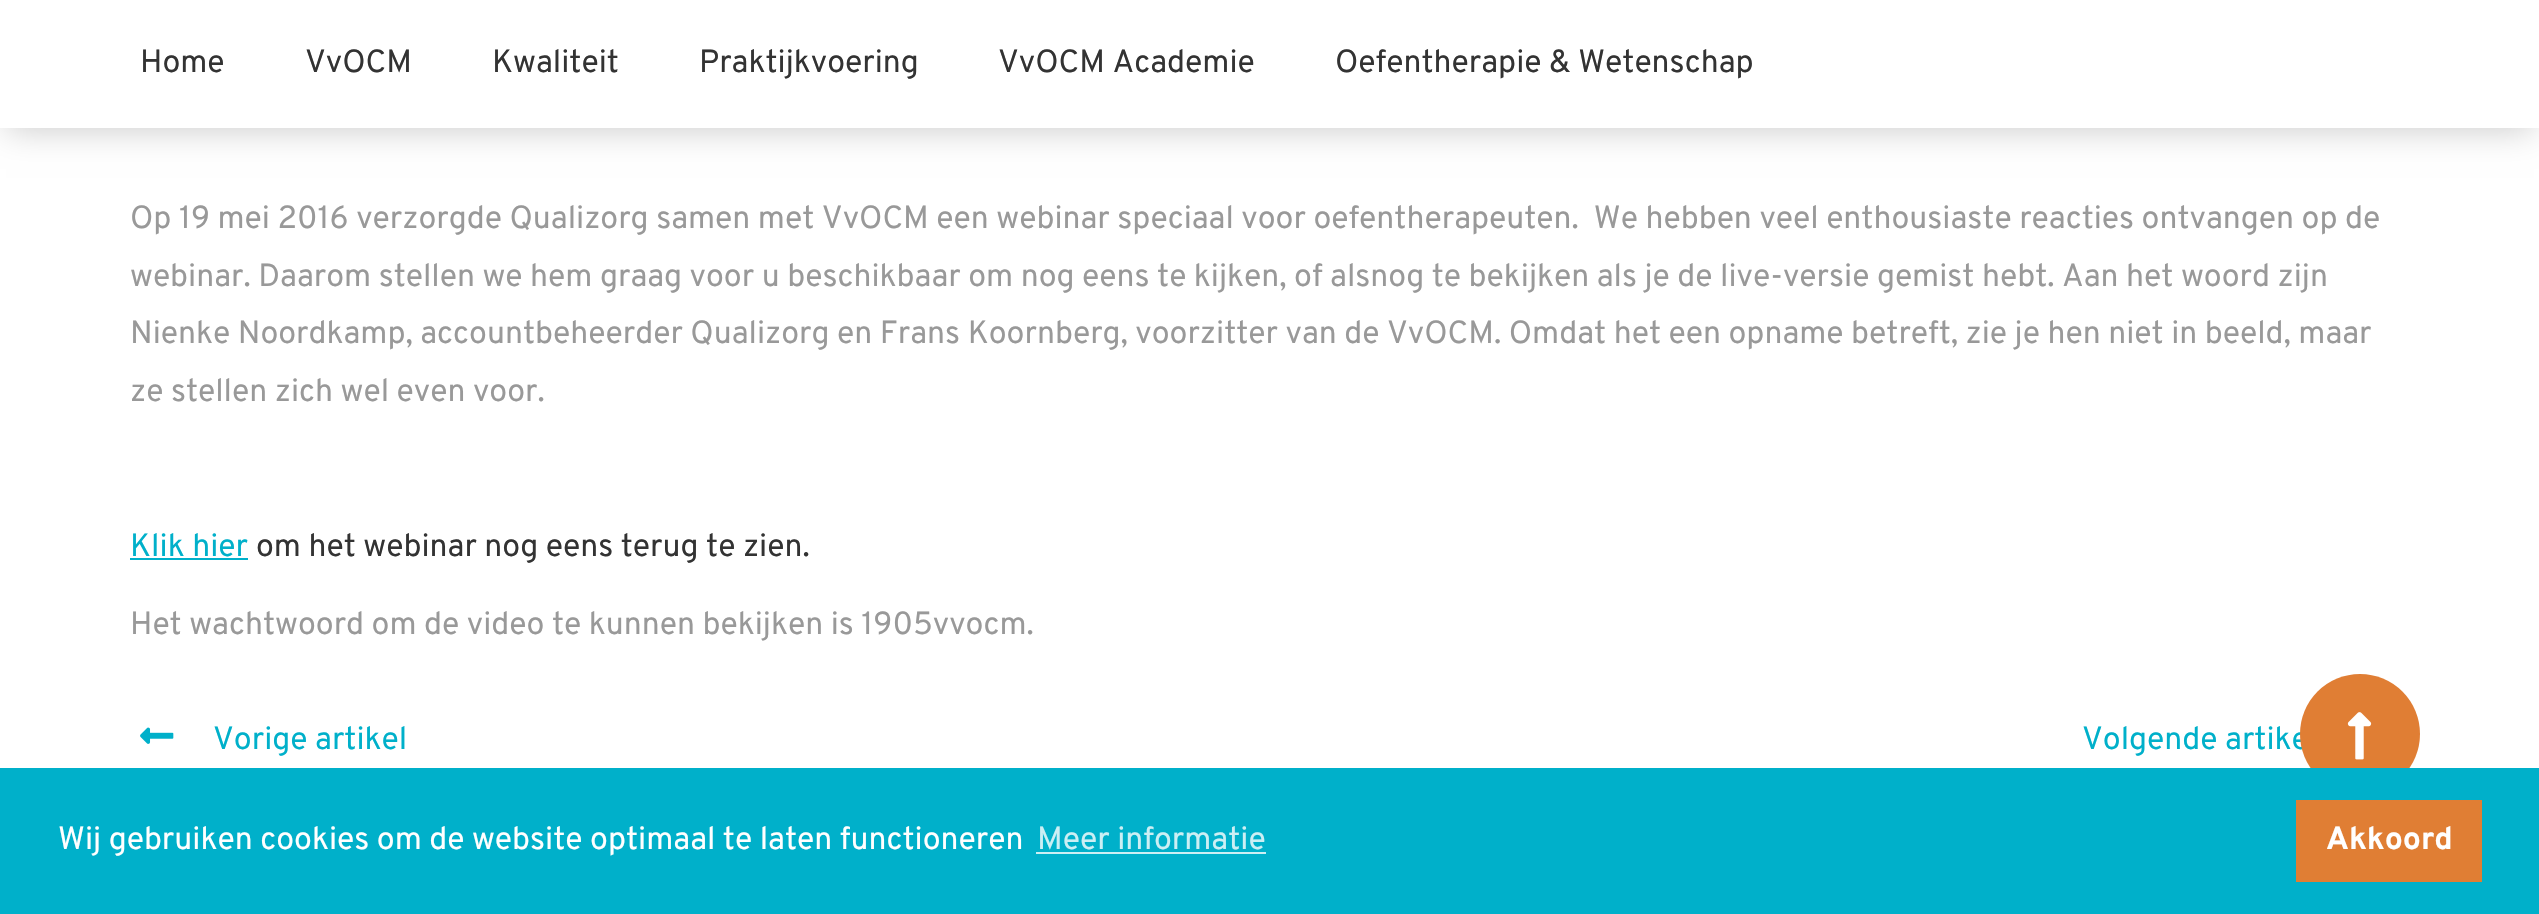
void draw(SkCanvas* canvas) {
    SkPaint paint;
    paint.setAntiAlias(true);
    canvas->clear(0xFFFFFFFF);
    paint.setColor(0x33000000);
    paint.setMaskFilter(SkMaskFilter::MakeBlur(kNormal_SkBlurStyle, 16));
    canvas->drawRect(SkRect::MakeXYWH(6, 12, 2528, 118), paint);
    paint.setMaskFilter(nullptr);
    paint.setColor(0xFFFFFFFF);
    canvas->drawRect(SkRect::MakeXYWH(0, 0, 2539, 128), paint);
    SkFont font1(fontMgr->matchFamilyStyle("Overpass", SkFontStyle::Normal()), 32);
    font1.setSubpixel(true);
    paint.setColor(0xFF333333);
    canvas->drawString("Home", 140, 72, font1, paint);
    canvas->drawString("VvOCM", 305, 72, font1, paint);
    canvas->drawString("Kwaliteit", 492, 72, font1, paint);
    canvas->drawString("Praktijkvoering", 699, 72, font1, paint);
    canvas->drawString("VvOCM Academie", 998, 72, font1, paint);
    canvas->drawString("Oefentherapie & Wetenschap", 1335, 72, font1, paint);
    paint.setColor(0xFF999999);
    canvas->drawString("Op 19 mei 2016 verzorgde Qualizorg samen met VvOCM een webinar speciaal voor oefentherapeuten.  We hebben veel enthousiaste reacties ontvangen op de", 130, 228, font1, paint);
    canvas->drawString("webinar. Daarom stellen we hem graag voor u beschikbaar om nog eens te kijken, of alsnog te bekijken als je de live-versie gemist hebt. Aan het woord zijn", 130, 286, font1, paint);
    canvas->drawString("Nienke Noordkamp, accountbeheerder Qualizorg en Frans Koornberg, voorzitter van de VvOCM. Omdat het een opname betreft, zie je hen niet in beeld, maar", 130, 343, font1, paint);
    canvas->drawString("ze stellen zich wel even voor.", 130, 401, font1, paint);
    paint.setColor(0xFF00B0CA);
    canvas->drawString("Klik hier", 130, 556, font1, paint);
    canvas->drawRect(SkRect::MakeXYWH(130, 558, 118, 2), paint);
    paint.setColor(0xFF333333);
    canvas->drawString("om het webinar nog eens terug te zien.", 256, 556, font1, paint);
    paint.setColor(0xFF999999);
    canvas->drawString("Het wachtwoord om de video te kunnen bekijken is 1905vvocm.", 130, 634, font1, paint);
    canvas->drawImageRect(SkImages::DeferredFromEncodedData(SkData::MakeFromFileName("img1.png")), SkRect::MakeXYWH(140, 727, 34, 17), SkSamplingOptions());
    paint.setColor(0xFF00B0CA);
    canvas->drawString("Vorige artikel", 213, 749, font1, paint);
    canvas->drawString("Volgende artike", 2082, 749, font1, paint);
    paint.setColor(0xFFE07E34);
    canvas->drawCircle(2360, 734, 60, paint);
    canvas->drawImageRect(SkImages::DeferredFromEncodedData(SkData::MakeFromFileName("img2.png")), SkRect::MakeXYWH(2347, 712, 25, 48), SkSamplingOptions());
    paint.setColor(0xFF00B0CA);
    canvas->drawRect(SkRect::MakeXYWH(0, 768, 2539, 146), paint);
    paint.setColor(0xFFFFFFFF);
    canvas->drawString("Wij gebruiken cookies om de website optimaal te laten functioneren", 58, 849, font1, paint);
    paint.setColor(0xFFCCEFF4);
    canvas->drawString("Meer informatie", 1037, 849, font1, paint);
    canvas->drawRect(SkRect::MakeXYWH(1036, 852, 230, 2), paint);
    paint.setColor(0xFFE07E34);
    canvas->drawRect(SkRect::MakeXYWH(2296, 800, 186, 82), paint);
    SkFont font2(fontMgr->matchFamilyStyle("Overpass", SkFontStyle::Bold()), 32);
    font2.setSubpixel(true);
    paint.setColor(0xFFFFFFFF);
    canvas->drawString("Akkoord", 2326, 849, font2, paint);
}
